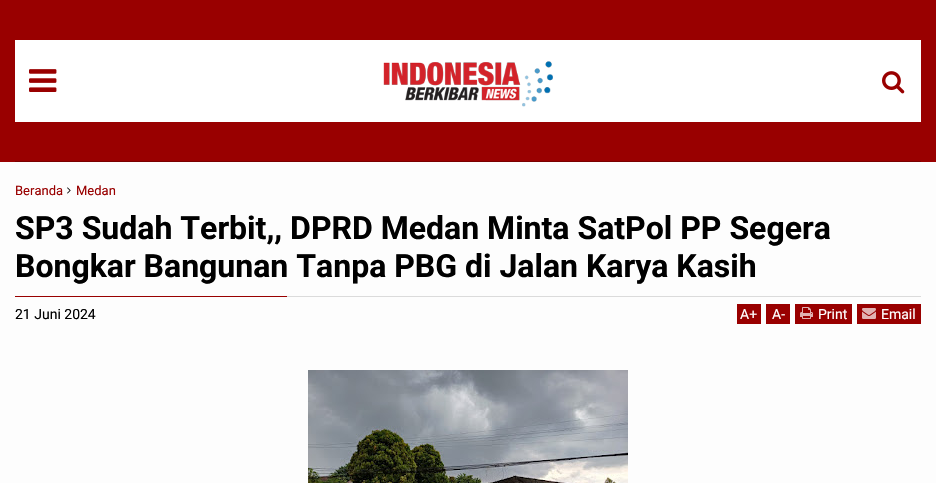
void draw(SkCanvas* canvas) {
    SkPaint paint;
    paint.setAntiAlias(true);
    canvas->clear(0xFFFDFDFD);
    paint.setColor(0xFF990000);
    canvas->drawRect(SkRect::MakeXYWH(0, 0, 936, 162), paint);
    paint.setColor(0xFFFFFFFF);
    canvas->drawRect(SkRect::MakeXYWH(15, 40, 906, 82), paint);
    canvas->drawImageRect(SkImages::DeferredFromEncodedData(SkData::MakeFromFileName("img1.png")), SkRect::MakeXYWH(383, 61, 170, 46), SkSamplingOptions());
    canvas->drawImageRect(SkImages::DeferredFromEncodedData(SkData::MakeFromFileName("img2.png")), SkRect::MakeXYWH(29, 69, 28, 23), SkSamplingOptions());
    canvas->drawImageRect(SkImages::DeferredFromEncodedData(SkData::MakeFromFileName("img3.png")), SkRect::MakeXYWH(882, 71, 23, 23), SkSamplingOptions());
    paint.setColor(0xFF7A0000);
    canvas->drawRect(SkRect::MakeXYWH(15, 161, 906, 1), paint);
    SkFont font1(fontMgr->matchFamilyStyle("Roboto", SkFontStyle::Normal()), 13);
    font1.setSubpixel(true);
    paint.setColor(0xFF990000);
    canvas->drawString("Beranda", 15, 195, font1, paint);
    canvas->drawImageRect(SkImages::DeferredFromEncodedData(SkData::MakeFromFileName("img4.png")), SkRect::MakeXYWH(67, 187, 4, 7), SkSamplingOptions());
    canvas->drawString("Medan", 76, 195, font1, paint);
    SkFont font2(fontMgr->matchFamilyStyle("Roboto", SkFontStyle::Bold()), 32);
    font2.setSubpixel(true);
    paint.setColor(0xFF000000);
    canvas->drawString("SP3 Sudah Terbit,, DPRD Medan Minta SatPol PP Segera", 15, 239, font2, paint);
    canvas->drawString("Bongkar Bangunan Tanpa PBG di Jalan Karya Kasih", 15, 277, font2, paint);
    paint.setColor(0xFF990000);
    canvas->drawRect(SkRect::MakeXYWH(15, 296, 272, 1), paint);
    paint.setColor(0xFFDBDBDB);
    canvas->drawRect(SkRect::MakeXYWH(287, 296, 634, 1), paint);
    SkFont font3(fontMgr->matchFamilyStyle("Roboto", SkFontStyle::Normal()), 14);
    font3.setSubpixel(true);
    paint.setColor(0xFF000000);
    canvas->drawString("21 Juni 2024", 15, 319, font3, paint);
    paint.setColor(0xFF990000);
    canvas->drawRect(SkRect::MakeXYWH(737, 304, 24, 20), paint);
    paint.setColor(0xFFFFFFFF);
    canvas->drawString("A+", 740, 319, font3, paint);
    paint.setColor(0xFF990000);
    canvas->drawRect(SkRect::MakeXYWH(766, 304, 24, 20), paint);
    paint.setColor(0xFFFFFFFF);
    canvas->drawString("A-", 772, 319, font3, paint);
    paint.setColor(0xFF990000);
    canvas->drawRect(SkRect::MakeXYWH(795, 304, 57, 20), paint);
    canvas->drawImageRect(SkImages::DeferredFromEncodedData(SkData::MakeFromFileName("img5.png")), SkRect::MakeXYWH(800, 307, 13, 12), SkSamplingOptions());
    paint.setColor(0xFFFFFFFF);
    canvas->drawString("Print", 818, 319, font3, paint);
    paint.setColor(0xFF990000);
    canvas->drawRect(SkRect::MakeXYWH(857, 304, 64, 20), paint);
    canvas->drawImageRect(SkImages::DeferredFromEncodedData(SkData::MakeFromFileName("img6.png")), SkRect::MakeXYWH(862, 308, 14, 11), SkSamplingOptions());
    paint.setColor(0xFFFFFFFF);
    canvas->drawString("Email", 881, 319, font3, paint);
    canvas->drawImageRect(SkImages::DeferredFromEncodedData(SkData::MakeFromFileName("img7.png")), SkRect::MakeXYWH(308, 370, 320, 113), SkSamplingOptions());
}
